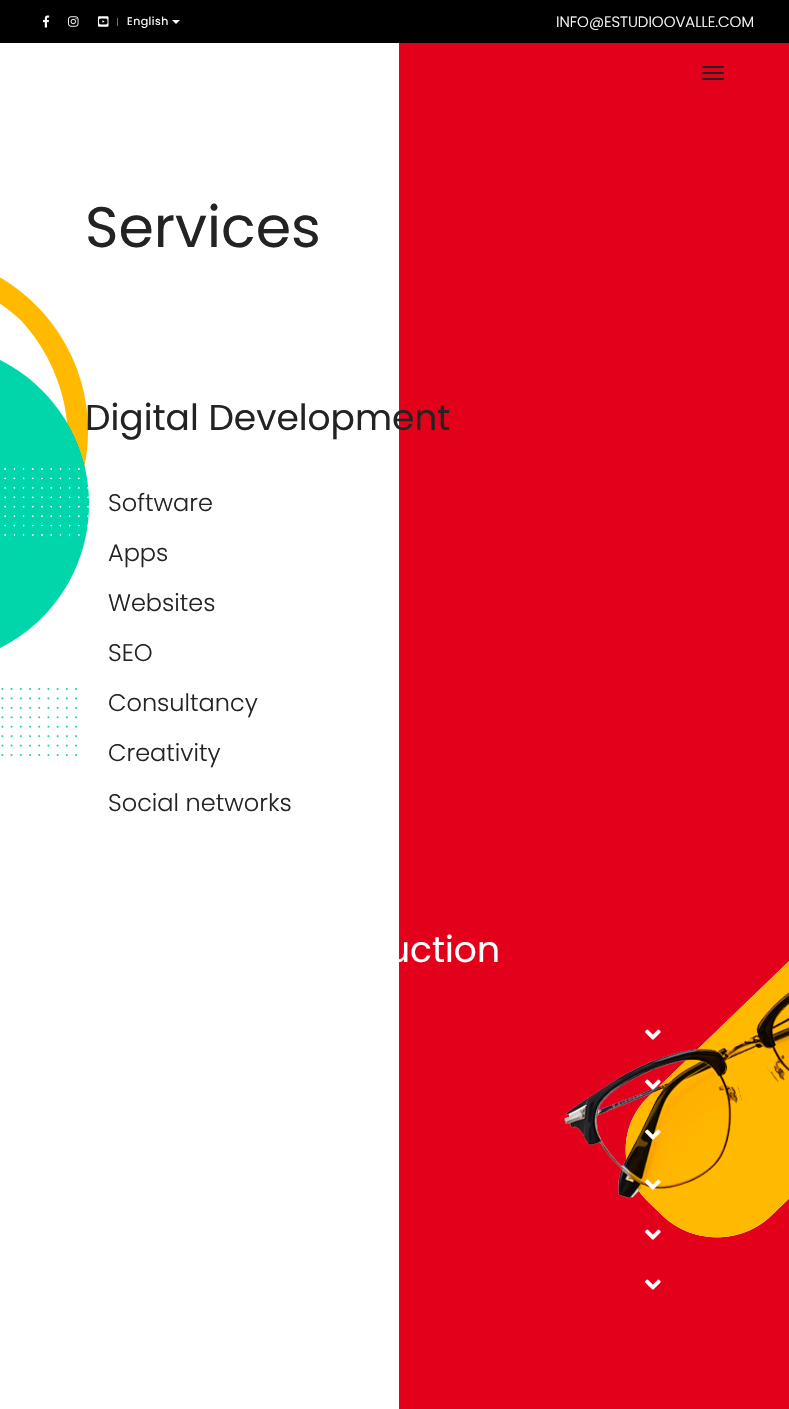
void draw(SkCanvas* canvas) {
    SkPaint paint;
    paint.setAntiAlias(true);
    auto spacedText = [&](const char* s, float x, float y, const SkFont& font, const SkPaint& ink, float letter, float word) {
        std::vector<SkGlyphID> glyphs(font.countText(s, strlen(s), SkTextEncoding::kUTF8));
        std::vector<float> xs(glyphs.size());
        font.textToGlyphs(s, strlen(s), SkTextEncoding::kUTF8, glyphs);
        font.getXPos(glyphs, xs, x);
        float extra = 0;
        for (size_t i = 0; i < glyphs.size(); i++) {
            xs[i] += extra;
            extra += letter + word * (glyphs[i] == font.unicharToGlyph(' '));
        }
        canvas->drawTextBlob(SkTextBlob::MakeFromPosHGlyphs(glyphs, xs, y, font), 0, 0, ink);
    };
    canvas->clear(0xFFFFFFFF);
    paint.setColor(0xFF000000);
    canvas->drawRect(SkRect::MakeXYWH(0, 0, 789, 43), paint);
    canvas->drawImageRect(SkImages::DeferredFromEncodedData(SkData::MakeFromFileName("img1.png")), SkRect::MakeXYWH(43, 15, 7, 13), SkSamplingOptions());
    canvas->drawImageRect(SkImages::DeferredFromEncodedData(SkData::MakeFromFileName("img2.png")), SkRect::MakeXYWH(68, 16, 11, 11), SkSamplingOptions());
    canvas->drawImageRect(SkImages::DeferredFromEncodedData(SkData::MakeFromFileName("img3.png")), SkRect::MakeXYWH(98, 16, 11, 11), SkSamplingOptions());
    paint.setColor(0xFF757575);
    canvas->drawRect(SkRect::MakeXYWH(117, 18, 1, 8), paint);
    SkFont font1(fontMgr->matchFamilyStyle("Poppins", SkFontStyle::Normal()), 11);
    font1.setSubpixel(true);
    paint.setColor(0xFFFFFFFF);
    spacedText("English", 127, 25, font1, paint, 0.5f, 0);
    canvas->drawPath(SkPathBuilder().moveTo(172, 20).lineTo(180, 20).lineTo(176, 24).close().detach(), paint);
    SkFont font2(fontMgr->matchFamilyStyle("Poppins", SkFontStyle(300, SkFontStyle::kNormal_Width, SkFontStyle::kUpright_Slant)), 15);
    font2.setSubpixel(true);
    canvas->drawString("INFO@ESTUDIOOVALLE.COM", 556, 27, font2, paint);
    paint.setColor(0xFFE3001B);
    canvas->drawRect(SkRect::MakeXYWH(399, 43, 390, 1366), paint);
    paint.setColor(0xFF232323);
    canvas->drawRoundRect(SkRect::MakeXYWH(702, 66, 22, 2), 1, 1, paint);
    canvas->drawRoundRect(SkRect::MakeXYWH(702, 72, 22, 2), 1, 1, paint);
    canvas->drawRoundRect(SkRect::MakeXYWH(702, 78, 22, 2), 1, 1, paint);
    canvas->drawImageRect(SkImages::DeferredFromEncodedData(SkData::MakeFromFileName("img4.png")), SkRect::MakeXYWH(0, 277, 789, 961), SkSamplingOptions());
    SkFont font3(fontMgr->matchFamilyStyle("Poppins", SkFontStyle::Normal()), 57);
    font3.setSubpixel(true);
    canvas->drawString("Services", 85, 247, font3, paint);
    SkFont font4(fontMgr->matchFamilyStyle("Poppins", SkFontStyle::Normal()), 36);
    font4.setSubpixel(true);
    canvas->drawString("Digital Development", 85, 430, font4, paint);
    SkFont font5(fontMgr->matchFamilyStyle("Poppins", SkFontStyle(300, SkFontStyle::kNormal_Width, SkFontStyle::kUpright_Slant)), 24);
    font5.setSubpixel(true);
    canvas->drawString("Software", 108, 511, font5, paint);
    canvas->drawString("Apps", 108, 561, font5, paint);
    canvas->drawString("Websites", 108, 611, font5, paint);
    canvas->drawString("SEO", 108, 661, font5, paint);
    canvas->drawString("Consultancy", 108, 711, font5, paint);
    canvas->drawString("Creativity", 108, 761, font5, paint);
    canvas->drawString("Social networks", 108, 811, font5, paint);
    paint.setColor(0xFFFFFFFF);
    canvas->drawString("uction", 387, 962, font4, paint);
    canvas->drawImageRect(SkImages::DeferredFromEncodedData(SkData::MakeFromFileName("img5.png")), SkRect::MakeXYWH(645, 1029, 16, 11), SkSamplingOptions());
    canvas->drawImageRect(SkImages::DeferredFromEncodedData(SkData::MakeFromFileName("img6.png")), SkRect::MakeXYWH(645, 1079, 16, 11), SkSamplingOptions());
    canvas->drawImageRect(SkImages::DeferredFromEncodedData(SkData::MakeFromFileName("img7.png")), SkRect::MakeXYWH(645, 1129, 16, 11), SkSamplingOptions());
    canvas->drawImageRect(SkImages::DeferredFromEncodedData(SkData::MakeFromFileName("img8.png")), SkRect::MakeXYWH(645, 1179, 16, 11), SkSamplingOptions());
    canvas->drawImageRect(SkImages::DeferredFromEncodedData(SkData::MakeFromFileName("img5.png")), SkRect::MakeXYWH(645, 1229, 16, 11), SkSamplingOptions());
    canvas->drawImageRect(SkImages::DeferredFromEncodedData(SkData::MakeFromFileName("img5.png")), SkRect::MakeXYWH(645, 1279, 16, 11), SkSamplingOptions());
}
